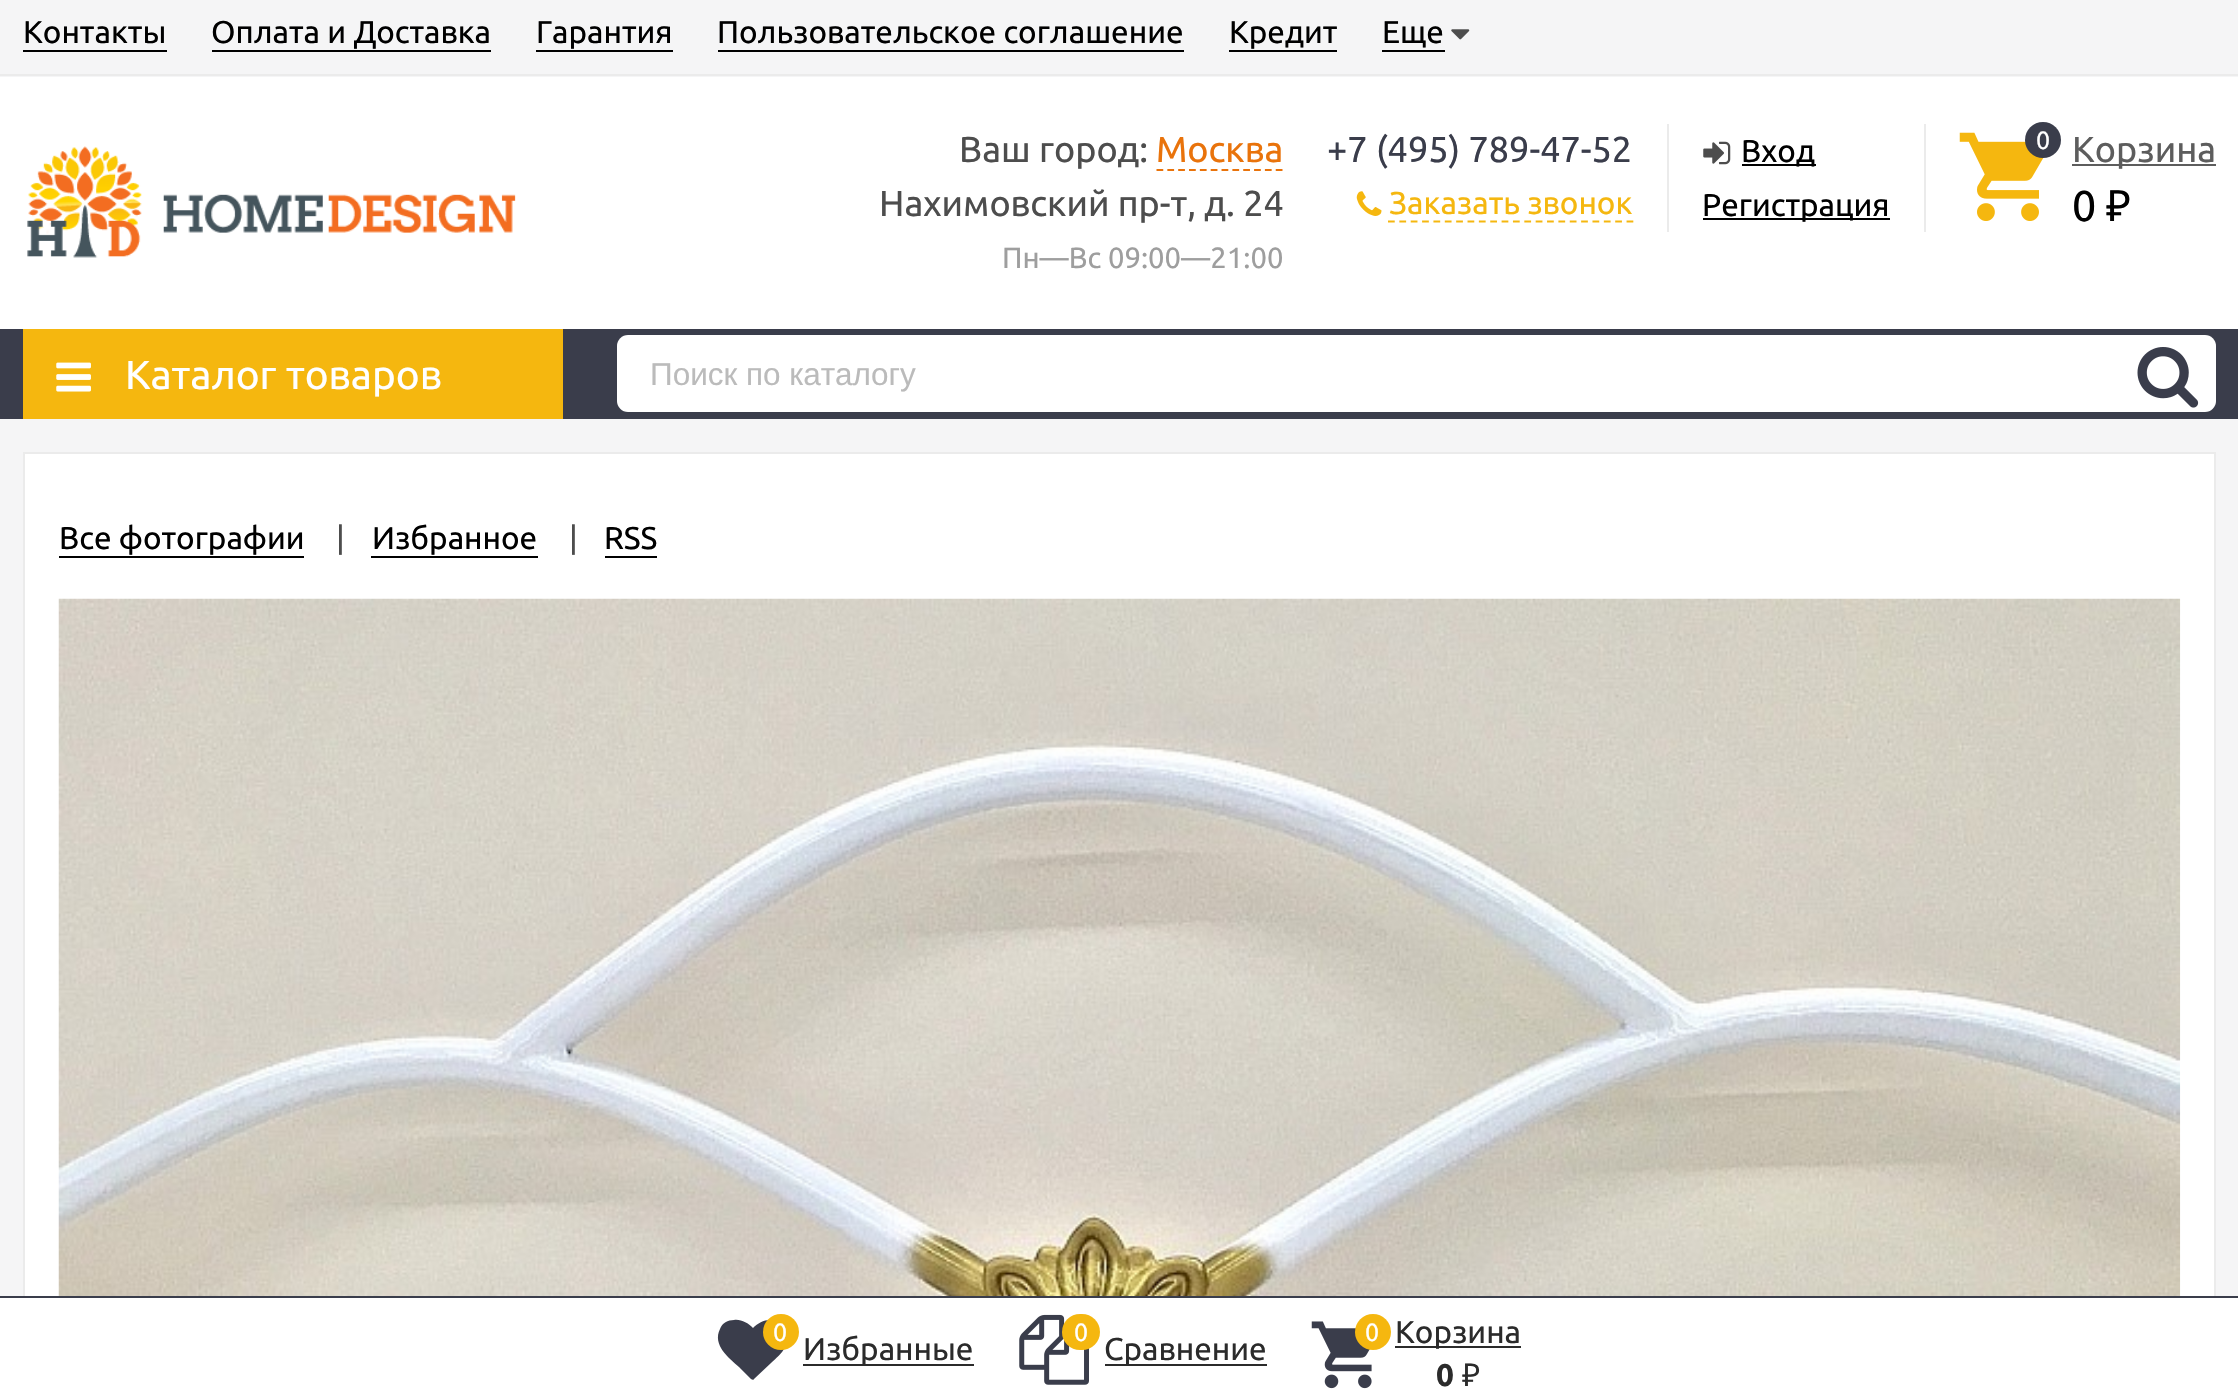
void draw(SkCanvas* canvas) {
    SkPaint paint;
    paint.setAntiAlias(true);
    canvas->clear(0xFFF5F5F6);
    paint.setColor(0xFFEBEBEB);
    canvas->drawRect(SkRect::MakeXYWH(0, 74, 2238, 2), paint);
    SkFont font1(fontMgr->matchFamilyStyle("Ubuntu", SkFontStyle::Normal()), 31.5f);
    font1.setSubpixel(true);
    paint.setColor(0xFF000000);
    canvas->drawString("Контакты", 23, 43, font1, paint);
    canvas->drawRect(SkRect::MakeXYWH(23, 50, 144, 2), paint);
    canvas->drawString("Оплата и Доставка", 211, 43, font1, paint);
    canvas->drawRect(SkRect::MakeXYWH(212, 50, 279, 2), paint);
    canvas->drawString("Гарантия", 536, 43, font1, paint);
    canvas->drawRect(SkRect::MakeXYWH(536, 50, 137, 2), paint);
    canvas->drawString("Пользовательское соглашение", 717, 43, font1, paint);
    canvas->drawRect(SkRect::MakeXYWH(718, 50, 466, 2), paint);
    canvas->drawString("Кредит", 1229, 43, font1, paint);
    canvas->drawRect(SkRect::MakeXYWH(1229, 50, 108, 2), paint);
    canvas->drawString("Еще", 1382, 43, font1, paint);
    canvas->drawRect(SkRect::MakeXYWH(1382, 50, 63, 2), paint);
    canvas->drawImageRect(SkImages::DeferredFromEncodedData(SkData::MakeFromFileName("img1.png")), SkRect::MakeXYWH(1451, 29, 19, 11), SkSamplingOptions());
    paint.setColor(0xFFFFFFFF);
    canvas->drawRect(SkRect::MakeXYWH(0, 77, 2238, 252), paint);
    canvas->drawImageRect(SkImages::DeferredFromEncodedData(SkData::MakeFromFileName("img2.png")), SkRect::MakeXYWH(27, 146, 489, 112), SkSamplingOptions());
    SkFont font2(fontMgr->matchFamilyStyle("Ubuntu", SkFontStyle::Normal()), 36);
    font2.setSubpixel(true);
    paint.setColor(0xFF4D4D4D);
    canvas->drawString("Ваш город:", 959, 162, font2, paint);
    paint.setColor(0xFFE9730B);
    canvas->drawString("Москва", 1156, 162, font2, paint);
    paint.setStyle(SkPaint::kStroke_Style);
    paint.setStrokeWidth(2.2f);
    paint.setPathEffect(SkDashPathEffect::Make({{6.75f, 4.09f}}, 0));
    canvas->drawPath(SkPathBuilder().moveTo(1156.5f, 170).lineTo(1282.5f, 170).detach(), paint);
    paint.setPathEffect(nullptr);
    paint.setStyle(SkPaint::kFill_Style);
    paint.setColor(0xFF4D4D4D);
    canvas->drawString("Нахимовский пр-т, д. 24", 879, 216, font2, paint);
    SkFont font3(fontMgr->matchFamilyStyle("Ubuntu", SkFontStyle::Normal()), 29.25f);
    font3.setSubpixel(true);
    paint.setColor(0xFF9E9E9E);
    canvas->drawString("Пн—Вс 09:00—21:00", 1002, 268, font3, paint);
    paint.setColor(0xFF3A3D4B);
    canvas->drawString("+7 (495) 789-47-52", 1327, 162, font2, paint);
    canvas->drawImageRect(SkImages::DeferredFromEncodedData(SkData::MakeFromFileName("img3.png")), SkRect::MakeXYWH(1356, 191, 26, 25), SkSamplingOptions());
    paint.setColor(0xFFF5B70F);
    canvas->drawString("Заказать звонок", 1389, 214, font1, paint);
    paint.setStyle(SkPaint::kStroke_Style);
    paint.setPathEffect(SkDashPathEffect::Make({{6.75f, 4.61f}}, 0));
    canvas->drawPath(SkPathBuilder().moveTo(1388, 221.5f).lineTo(1633.5f, 221.5f).detach(), paint);
    paint.setPathEffect(nullptr);
    paint.setStyle(SkPaint::kFill_Style);
    paint.setColor(0xFFEBEBEB);
    canvas->drawRect(SkRect::MakeXYWH(1924, 124, 2, 108), paint);
    canvas->drawRect(SkRect::MakeXYWH(1667, 124, 2, 108), paint);
    canvas->drawImageRect(SkImages::DeferredFromEncodedData(SkData::MakeFromFileName("img4.png")), SkRect::MakeXYWH(1703, 141, 28, 24), SkSamplingOptions());
    paint.setColor(0xFF000000);
    canvas->drawRect(SkRect::MakeXYWH(1742, 164, 74, 2), paint);
    canvas->drawString("Вход", 1741, 162, font1, paint);
    canvas->drawRect(SkRect::MakeXYWH(1703, 218, 187, 2), paint);
    canvas->drawString("Регистрация", 1702, 216, font1, paint);
    canvas->drawImageRect(SkImages::DeferredFromEncodedData(SkData::MakeFromFileName("img5.png")), SkRect::MakeXYWH(1959, 132, 85, 89), SkSamplingOptions());
    paint.setColor(0xFF3A3D4B);
    canvas->drawCircle(2043, 140, 18, paint);
    SkFont font4(fontMgr->matchFamilyStyle("Ubuntu", SkFontStyle::Normal()), 25);
    font4.setSubpixel(true);
    paint.setColor(0xFFFFFFFF);
    canvas->drawString("0", 2036, 149, font4, paint);
    paint.setColor(0xFF5D5D5D);
    canvas->drawRect(SkRect::MakeXYWH(2072, 164, 144, 2), paint);
    canvas->drawString("Корзина", 2072, 162, font2, paint);
    SkFont font5(fontMgr->matchFamilyStyle("Ubuntu", SkFontStyle::Normal()), 43);
    font5.setSubpixel(true);
    paint.setColor(0xFF000000);
    canvas->drawString("0", 2072, 221, font5, paint);
    SkFont font6(fontMgr->matchFamilyStyle("Noto Sans", SkFontStyle::Normal()), 43);
    font6.setSubpixel(true);
    canvas->drawString("₽", 2106, 221, font6, paint);
    paint.setColor(0xFF3A3D4B);
    canvas->drawRect(SkRect::MakeXYWH(0, 329, 2238, 90), paint);
    paint.setColor(0xFFF5B70F);
    canvas->drawRect(SkRect::MakeXYWH(23, 329, 540, 90), paint);
    canvas->drawImageRect(SkImages::DeferredFromEncodedData(SkData::MakeFromFileName("img6.png")), SkRect::MakeXYWH(56, 362, 35, 30), SkSamplingOptions());
    SkFont font7(fontMgr->matchFamilyStyle("Ubuntu", SkFontStyle::Normal()), 40.5f);
    font7.setSubpixel(true);
    paint.setColor(0xFFFFFFFF);
    canvas->drawString("Каталог товаров", 125, 389, font7, paint);
    canvas->drawRoundRect(SkRect::MakeXYWH(617, 335, 1599, 77), 11, 11, paint);
    SkFont font8(fontMgr->matchFamilyStyle("Liberation Sans", SkFontStyle::Normal()), 31.5f);
    font8.setSubpixel(true);
    paint.setColor(0xFFBBBBBB);
    canvas->drawString("Поиск по каталогу", 650, 385, font8, paint);
    canvas->drawImageRect(SkImages::DeferredFromEncodedData(SkData::MakeFromFileName("img7.png")), SkRect::MakeXYWH(2137, 347, 62, 61), SkSamplingOptions());
    paint.setColor(0xFFFFFFFF);
    canvas->drawRect(SkRect::MakeXYWH(25, 454, 2189, 842), paint);
    paint.setColor(0xFFEBEBEB);
    canvas->drawRect(SkRect::MakeXYWH(23, 452, 2193, 2), paint);
    canvas->drawRect(SkRect::MakeXYWH(2214, 452, 2, 844), paint);
    canvas->drawRect(SkRect::MakeXYWH(23, 452, 2, 844), paint);
    paint.setColor(0xFF000000);
    canvas->drawString("Все фотографии", 59, 549, font1, paint);
    canvas->drawRect(SkRect::MakeXYWH(59, 556, 245, 2), paint);
    paint.setColor(0xFF4D4D4D);
    canvas->drawString("|", 336, 549, font1, paint);
    paint.setColor(0xFF000000);
    canvas->drawString("Избранное", 372, 549, font1, paint);
    canvas->drawRect(SkRect::MakeXYWH(371, 556, 167, 2), paint);
    paint.setColor(0xFF4D4D4D);
    canvas->drawString("|", 569, 549, font1, paint);
    paint.setColor(0xFF000000);
    canvas->drawString("RSS", 604, 549, font1, paint);
    canvas->drawRect(SkRect::MakeXYWH(605, 556, 52, 2), paint);
    canvas->drawImageRect(SkImages::DeferredFromEncodedData(SkData::MakeFromFileName("img8.png")), SkRect::MakeXYWH(58, 598, 2123, 698), SkSamplingOptions());
    paint.setColor(0xFFFFFFFF);
    canvas->drawRect(SkRect::MakeXYWH(0, 1298, 2238, 102), paint);
    paint.setColor(0xFF3A3D4B);
    canvas->drawRect(SkRect::MakeXYWH(0, 1296, 2238, 2), paint);
    canvas->drawPath(SkPathBuilder().moveTo(754, 1379).cubicTo(754, 1380, 752, 1380, 751, 1379).lineTo(739, 1367).cubicTo(729, 1358, 712, 1345, 720, 1329).cubicTo(722, 1323, 728, 1320, 734, 1320).cubicTo(741, 1319, 748, 1323, 753, 1328).cubicTo(760, 1321, 770, 1317, 780, 1323).cubicTo(784, 1325, 786, 1329, 787, 1334).cubicTo(788, 1339, 787, 1343, 785, 1347).cubicTo(782, 1354, 776, 1358, 771, 1363).close().detach(), paint);
    paint.setColor(0xFFF5B70F);
    canvas->drawCircle(781, 1332, 18, paint);
    paint.setColor(0xFFFFFFFF);
    canvas->drawString("0", 773, 1341, font4, paint);
    paint.setColor(0xFF2B2B2B);
    canvas->drawRect(SkRect::MakeXYWH(803, 1364, 171, 2), paint);
    canvas->drawString("Избранные", 803, 1360, font1, paint);
    canvas->drawImageRect(SkImages::DeferredFromEncodedData(SkData::MakeFromFileName("img9.png")), SkRect::MakeXYWH(1019, 1314, 70, 71), SkSamplingOptions());
    paint.setColor(0xFFF5B70F);
    canvas->drawRoundRect(SkRect::MakeXYWH(1062, 1314, 38, 36), 18, 18, paint);
    paint.setColor(0xFFFFFFFF);
    canvas->drawString("0", 1074, 1341, font4, paint);
    paint.setColor(0xFF2B2B2B);
    canvas->drawRect(SkRect::MakeXYWH(1105, 1364, 162, 2), paint);
    canvas->drawString("Сравнение", 1104, 1360, font1, paint);
    canvas->drawImageRect(SkImages::DeferredFromEncodedData(SkData::MakeFromFileName("img10.png")), SkRect::MakeXYWH(1311, 1321, 61, 68), SkSamplingOptions());
    paint.setColor(0xFFF5B70F);
    canvas->drawCircle(1373, 1332, 18, paint);
    paint.setColor(0xFFFFFFFF);
    canvas->drawString("0", 1365, 1341, font4, paint);
    paint.setColor(0xFF2B2B2B);
    canvas->drawRect(SkRect::MakeXYWH(1395, 1346, 126, 2), paint);
    canvas->drawString("Корзина", 1395, 1343, font1, paint);
    SkFont font9(fontMgr->matchFamilyStyle("Ubuntu", SkFontStyle::Bold()), 31.5f);
    font9.setSubpixel(true);
    canvas->drawString("0", 1436, 1386, font9, paint);
    SkFont font10(fontMgr->matchFamilyStyle("Noto Sans", SkFontStyle::Normal()), 31.5f);
    font10.setSubpixel(true);
    canvas->drawString("₽", 1462, 1386, font10, paint);
}
